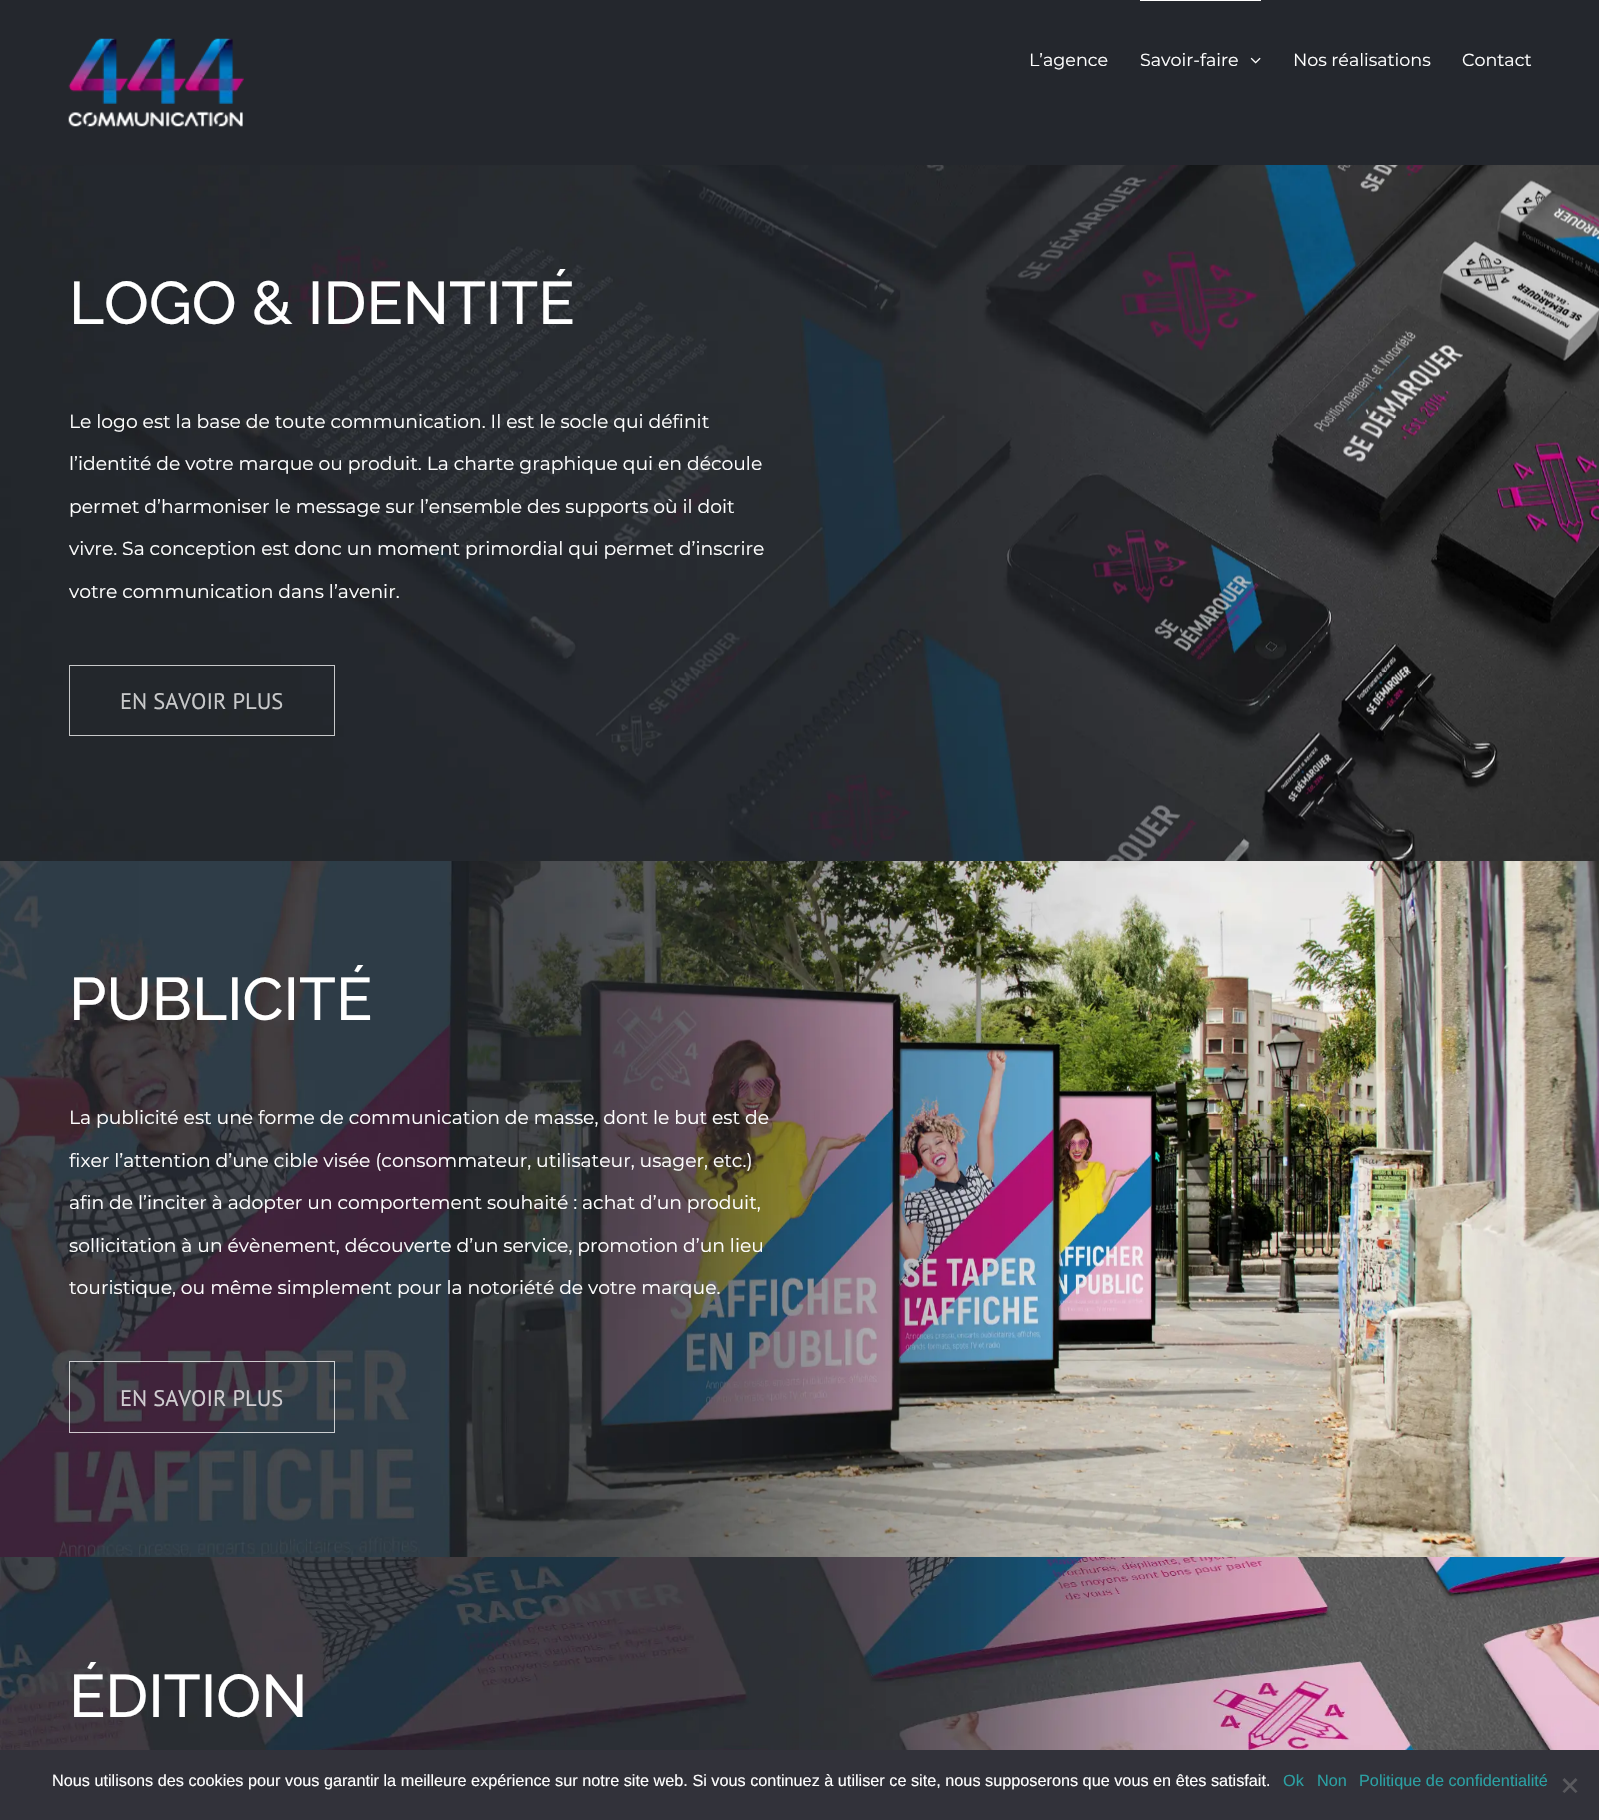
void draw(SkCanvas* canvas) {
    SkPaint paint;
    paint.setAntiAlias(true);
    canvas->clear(0xFFFFFFFF);
    paint.setColor(0xFF24272D);
    canvas->drawRect(SkRect::MakeXYWH(0, 0, 1599, 165), paint);
    canvas->drawImageRect(SkImages::DeferredFromEncodedData(SkData::MakeFromFileName("img1.png")), SkRect::MakeXYWH(68, 38, 176, 89), SkSamplingOptions());
    SkFont font1(fontMgr->matchFamilyStyle("Montserrat", SkFontStyle(100, SkFontStyle::kNormal_Width, SkFontStyle::kUpright_Slant)), 17.5f);
    font1.setSubpixel(true);
    paint.setColor(0xFFFFFFFF);
    canvas->drawString("L’agence", 1029, 66, font1, paint);
    canvas->drawRect(SkRect::MakeXYWH(1140, 0, 121, 1), paint);
    canvas->drawString("Savoir-faire", 1140, 66, font1, paint);
    canvas->drawImageRect(SkImages::DeferredFromEncodedData(SkData::MakeFromFileName("img2.png")), SkRect::MakeXYWH(1250, 57, 11, 7), SkSamplingOptions());
    canvas->drawString("Nos réalisations", 1293, 66, font1, paint);
    canvas->drawString("Contact", 1462, 66, font1, paint);
    canvas->drawImageRect(SkImages::DeferredFromEncodedData(SkData::MakeFromFileName("img3.png")), SkRect::MakeXYWH(0, 165, 1599, 696), SkSamplingOptions());
    SkFont font2(fontMgr->matchFamilyStyle("Raleway", SkFontStyle(100, SkFontStyle::kNormal_Width, SkFontStyle::kUpright_Slant)), 60);
    font2.setSubpixel(true);
    canvas->drawString("LOGO & IDENTITÉ", 69, 324, font2, paint);
    SkFont font3(fontMgr->matchFamilyStyle("Montserrat", SkFontStyle(100, SkFontStyle::kNormal_Width, SkFontStyle::kUpright_Slant)), 18.75f);
    font3.setSubpixel(true);
    canvas->drawString("Le logo est la base de toute communication. Il est le socle qui définit", 69, 428, font3, paint);
    canvas->drawString("l’identité de votre marque ou produit. La charte graphique qui en découle", 69, 470, font3, paint);
    canvas->drawString("permet d’harmoniser le message sur l’ensemble des supports où il doit", 69, 513, font3, paint);
    canvas->drawString("vivre. Sa conception est donc un moment primordial qui permet d’inscrire", 69, 555, font3, paint);
    canvas->drawString("votre communication dans l’avenir.", 69, 598, font3, paint);
    paint.setStyle(SkPaint::kStroke_Style);
    paint.setStrokeWidth(1);
    paint.setColor(0xBFFFFFFF);
    canvas->drawRect(SkRect::MakeXYWH(69.5f, 665.5f, 265, 70), paint);
    SkFont font4(fontMgr->matchFamilyStyle("PT Sans", SkFontStyle::Normal()), 22.5f);
    font4.setSubpixel(true);
    paint.setStyle(SkPaint::kFill_Style);
    paint.setColor(0xFFC8C9CA);
    canvas->drawString("EN SAVOIR PLUS", 120, 709, font4, paint);
    canvas->drawImageRect(SkImages::DeferredFromEncodedData(SkData::MakeFromFileName("img4.png")), SkRect::MakeXYWH(0, 861, 1599, 696), SkSamplingOptions());
    paint.setColor(0xFFFFFFFF);
    canvas->drawString("PUBLICITÉ", 69, 1020, font2, paint);
    canvas->drawString("La publicité est une forme de communication de masse, dont le but est de", 69, 1124, font3, paint);
    canvas->drawString("fixer l’attention d’une cible visée (consommateur, utilisateur, usager, etc.)", 69, 1167, font3, paint);
    canvas->drawString("afin de l’inciter à adopter un comportement souhaité : achat d’un produit,", 69, 1209, font3, paint);
    canvas->drawString("sollicitation à un évènement, découverte d’un service, promotion d’un lieu", 69, 1252, font3, paint);
    canvas->drawString("touristique, ou même simplement pour la notoriété de votre marque.", 69, 1294, font3, paint);
    paint.setStyle(SkPaint::kStroke_Style);
    paint.setColor(0xBFFFFFFF);
    canvas->drawRect(SkRect::MakeXYWH(69.5f, 1361.5f, 265, 71), paint);
    paint.setStyle(SkPaint::kFill_Style);
    paint.setColor(0xFFCFCCD0);
    canvas->drawString("EN SAVOIR PLUS", 120, 1406, font4, paint);
    canvas->drawImageRect(SkImages::DeferredFromEncodedData(SkData::MakeFromFileName("img5.png")), SkRect::MakeXYWH(0, 1557, 1599, 193), SkSamplingOptions());
    paint.setColor(0xFFFFFFFF);
    canvas->drawString("ÉDITION", 69, 1717, font2, paint);
    paint.setColor(0xFF32323A);
    canvas->drawRect(SkRect::MakeXYWH(0, 1750, 1599, 70), paint);
    SkFont font5(fontMgr->matchFamilyStyle("Liberation Sans", SkFontStyle::Normal()), 16.25f);
    font5.setSubpixel(true);
    paint.setColor(0xFFFFFFFF);
    canvas->drawString("Nous utilisons des cookies pour vous garantir la meilleure expérience sur notre site web. Si vous continuez à utiliser ce site, nous supposerons que vous en êtes satisfait.", 52, 1786, font5, paint);
    paint.setColor(0xFF2BA0A3);
    canvas->drawString("Ok", 1283, 1786, font5, paint);
    canvas->drawString("Non", 1317, 1786, font5, paint);
    canvas->drawString("Politique de confidentialité", 1359, 1786, font5, paint);
    paint.setColor(0xFF59595D);
    canvas->drawPath(SkPathBuilder().moveTo(1575.5f, 1778).lineTo(1577.5f, 1780).lineTo(1564.5f, 1793).lineTo(1562.5f, 1791.5f).close().detach(), paint);
    canvas->drawPath(SkPathBuilder().moveTo(1562.5f, 1780).lineTo(1564.5f, 1778).lineTo(1577.5f, 1791.5f).lineTo(1575.5f, 1793).close().detach(), paint);
}
